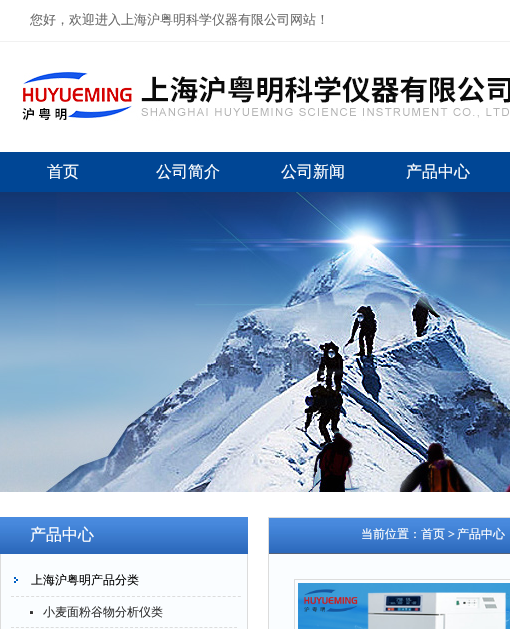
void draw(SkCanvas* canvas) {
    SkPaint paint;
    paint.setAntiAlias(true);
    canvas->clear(0xFFFFFFFF);
    paint.setColor(0xFFF1F1F1);
    canvas->drawRect(SkRect::MakeXYWH(0, 41, 510, 1), paint);
    SkFont font1(fontMgr->matchFamilyStyle("WenQuanYi Zen Hei", SkFontStyle(500, SkFontStyle::kNormal_Width, SkFontStyle::kUpright_Slant)), 13);
    font1.setSubpixel(true);
    paint.setColor(0xFF6C6C6C);
    canvas->drawString("您好，欢迎进入上海沪粤明科学仪器有限公司网站！", 30, 24, font1, paint);
    canvas->drawImageRect(SkImages::DeferredFromEncodedData(SkData::MakeFromFileName("img1.png")), SkRect::MakeXYWH(22, 72, 488, 49), SkSamplingOptions());
    paint.setColor(0xFF004695);
    canvas->drawRect(SkRect::MakeXYWH(0, 152, 510, 40), paint);
    SkFont font2(fontMgr->matchFamilyStyle("WenQuanYi Zen Hei", SkFontStyle(500, SkFontStyle::kNormal_Width, SkFontStyle::kUpright_Slant)), 16);
    font2.setSubpixel(true);
    paint.setColor(0xFFFFFFFF);
    canvas->drawString("首页", 47, 177, font2, paint);
    canvas->drawString("公司简介", 156, 177, font2, paint);
    canvas->drawString("公司新闻", 281, 177, font2, paint);
    canvas->drawString("产品中心", 406, 177, font2, paint);
    canvas->drawImageRect(SkImages::DeferredFromEncodedData(SkData::MakeFromFileName("img2.png")), SkRect::MakeXYWH(0, 192, 510, 300), SkSamplingOptions());
    canvas->drawImageRect(SkImages::DeferredFromEncodedData(SkData::MakeFromFileName("img3.png")), SkRect::MakeXYWH(0, 517, 248, 37), SkSamplingOptions());
    canvas->drawString("产品中心", 30, 540, font2, paint);
    paint.setColor(0xFFFAFDFF);
    canvas->drawRect(SkRect::MakeXYWH(1, 554, 246, 75), paint);
    paint.setColor(0xFFDCDCDC);
    canvas->drawRect(SkRect::MakeXYWH(247, 554, 1, 75), paint);
    canvas->drawRect(SkRect::MakeXYWH(0, 554, 1, 75), paint);
    canvas->drawImageRect(SkImages::DeferredFromEncodedData(SkData::MakeFromFileName("img4.png")), SkRect::MakeXYWH(14, 577, 4, 6), SkSamplingOptions());
    paint.setStyle(SkPaint::kStroke_Style);
    paint.setStrokeWidth(1);
    paint.setColor(0xFFDDDDDD);
    paint.setPathEffect(SkDashPathEffect::Make({{3, 2.04f}}, 0));
    canvas->drawPath(SkPathBuilder().moveTo(11, 596.5f).lineTo(241, 596.5f).detach(), paint);
    paint.setPathEffect(nullptr);
    SkFont font3(fontMgr->matchFamilyStyle("WenQuanYi Zen Hei", SkFontStyle(500, SkFontStyle::kNormal_Width, SkFontStyle::kUpright_Slant)), 12);
    font3.setSubpixel(true);
    paint.setStyle(SkPaint::kFill_Style);
    paint.setColor(0xFF000000);
    canvas->drawString("上海沪粤明产品分类", 31, 584, font3, paint);
    paint.setStyle(SkPaint::kStroke_Style);
    paint.setColor(0xFFDDDDDD);
    paint.setPathEffect(SkDashPathEffect::Make({{3, 1.96f}}, 0));
    canvas->drawPath(SkPathBuilder().moveTo(11, 627.5f).lineTo(237, 627.5f).detach(), paint);
    paint.setPathEffect(nullptr);
    canvas->drawImageRect(SkImages::DeferredFromEncodedData(SkData::MakeFromFileName("img5.png")), SkRect::MakeXYWH(29, 611, 5, 4), SkSamplingOptions());
    paint.setStyle(SkPaint::kFill_Style);
    paint.setColor(0xFF333333);
    canvas->drawString("小麦面粉谷物分析仪类", 43, 616, font3, paint);
    paint.setColor(0xFFFAFDFF);
    canvas->drawRect(SkRect::MakeXYWH(269, 554, 241, 75), paint);
    paint.setStyle(SkPaint::kStroke_Style);
    paint.setColor(0xFFDCDCDC);
    canvas->drawRect(SkRect::MakeXYWH(268.5f, 517.5f, 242, 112), paint);
    canvas->drawImageRect(SkImages::DeferredFromEncodedData(SkData::MakeFromFileName("img6.png")), SkRect::MakeXYWH(269, 518, 241, 35), SkSamplingOptions());
    paint.setStyle(SkPaint::kFill_Style);
    paint.setColor(0xFF556177);
    canvas->drawRect(SkRect::MakeXYWH(269, 553, 241, 1), paint);
    paint.setColor(0xFFFFFFFF);
    canvas->drawString("当前位置：首页", 361, 538, font3, paint);
    SkFont font4(fontMgr->matchFamilyStyle("Liberation Serif", SkFontStyle::Normal()), 12);
    font4.setSubpixel(true);
    canvas->drawString(">", 448, 538, font4, paint);
    canvas->drawString("产品中心", 457, 538, font3, paint);
    paint.setStyle(SkPaint::kStroke_Style);
    paint.setColor(0xFFDDDDDD);
    canvas->drawRect(SkRect::MakeXYWH(294.5f, 579.5f, 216, 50), paint);
    canvas->drawImageRect(SkImages::DeferredFromEncodedData(SkData::MakeFromFileName("img7.png")), SkRect::MakeXYWH(298, 583, 212, 46), SkSamplingOptions());
}
